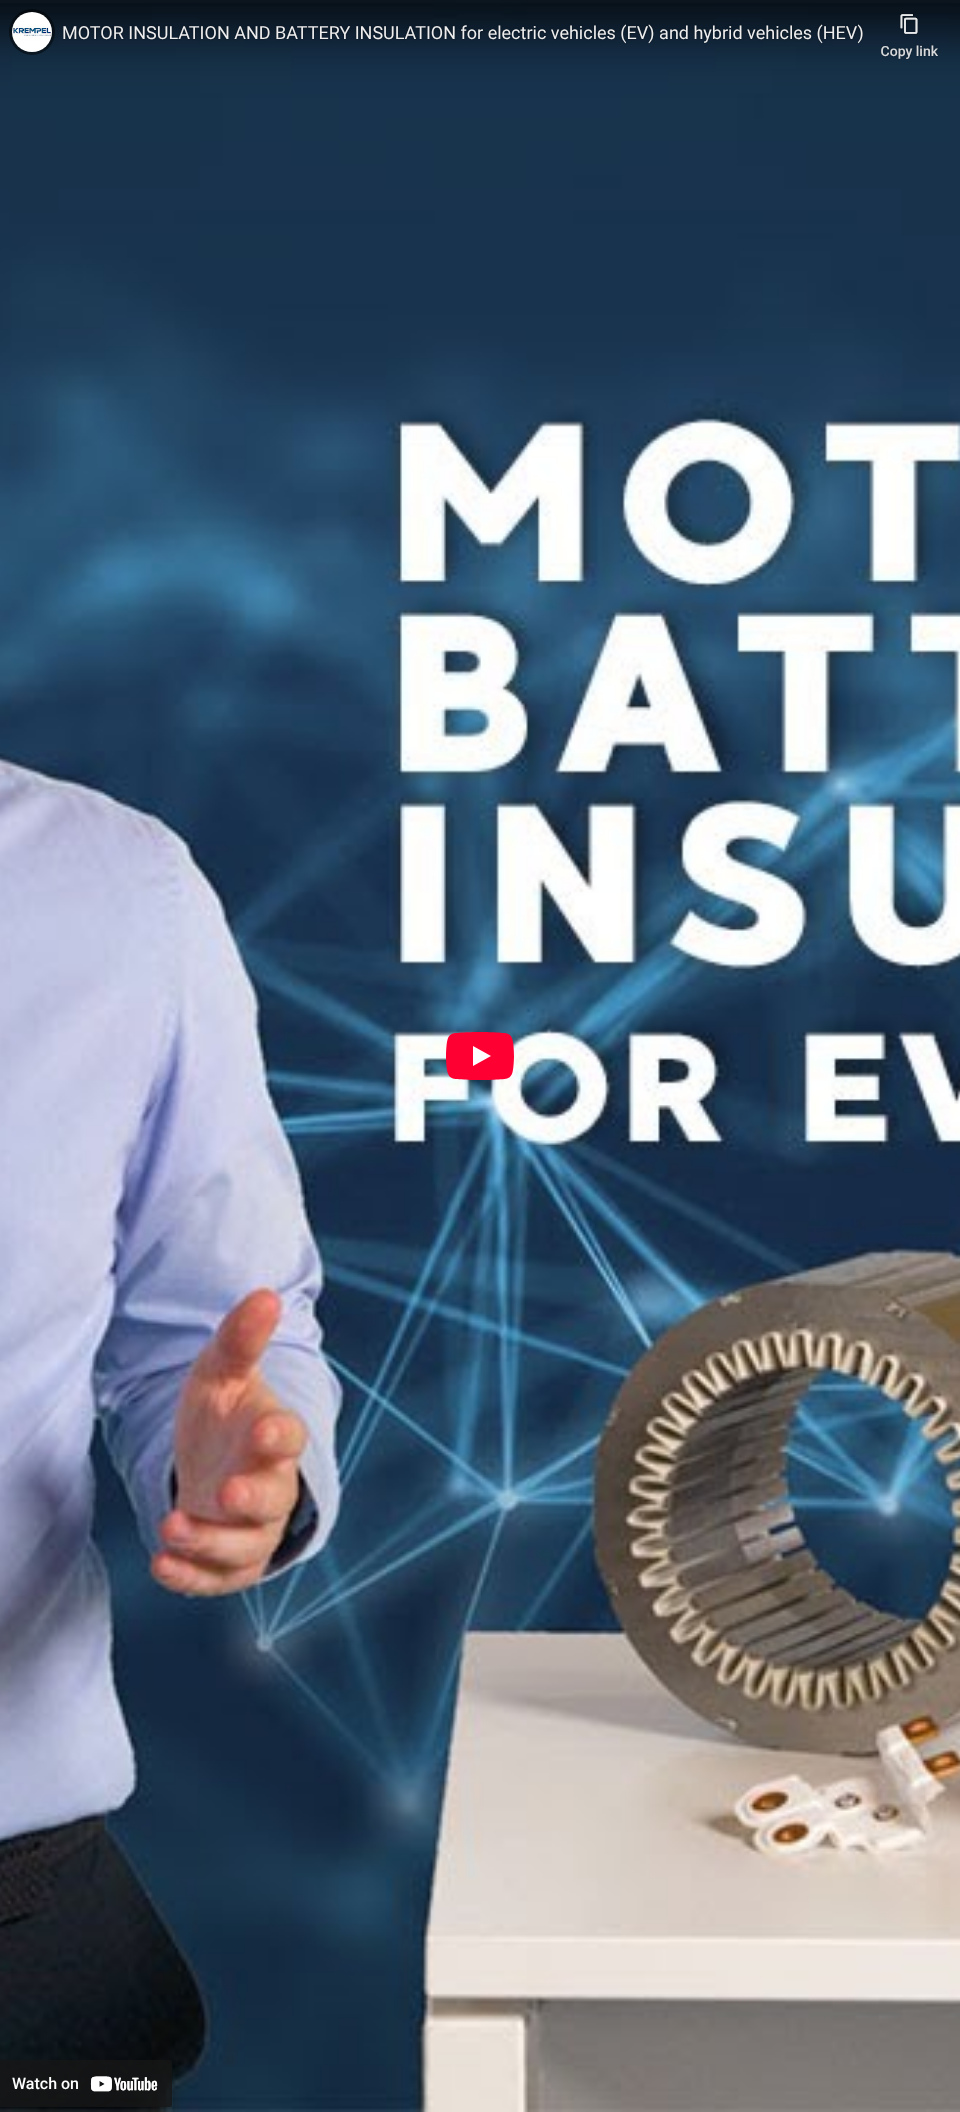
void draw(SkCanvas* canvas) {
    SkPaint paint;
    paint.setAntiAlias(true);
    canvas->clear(0xFFFFFFFF);
    canvas->drawImageRect(SkImages::DeferredFromEncodedData(SkData::MakeFromFileName("img1.png")), SkRect::MakeXYWH(0, 0, 960, 2112), SkSamplingOptions());
}
